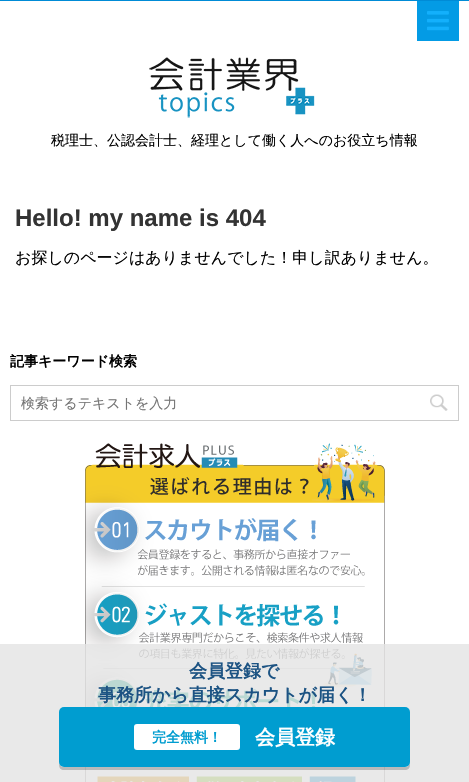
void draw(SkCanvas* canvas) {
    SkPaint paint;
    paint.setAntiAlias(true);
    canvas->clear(0xFFFFFFFF);
    paint.setColor(0xFF008BD6);
    canvas->drawRect(SkRect::MakeXYWH(0, 0, 469, 1), paint);
    paint.setColor(0xFF039BE5);
    canvas->drawRect(SkRect::MakeXYWH(417, 1, 42, 40), paint);
    canvas->drawImageRect(SkImages::DeferredFromEncodedData(SkData::MakeFromFileName("img1.png")), SkRect::MakeXYWH(427, 11, 22, 20), SkSamplingOptions());
    canvas->drawImageRect(SkImages::DeferredFromEncodedData(SkData::MakeFromFileName("img2.png")), SkRect::MakeXYWH(149, 57, 166, 61), SkSamplingOptions());
    SkFont font1(fontMgr->matchFamilyStyle("WenQuanYi Zen Hei", SkFontStyle(500, SkFontStyle::kNormal_Width, SkFontStyle::kUpright_Slant)), 14);
    font1.setSubpixel(true);
    paint.setColor(0xFF000000);
    canvas->drawString("税理士、公認会計士、経理として働く人へのお役立ち情報", 51, 145, font1, paint);
    SkFont font2(fontMgr->matchFamilyStyle("Liberation Sans", SkFontStyle::Bold()), 24);
    font2.setSubpixel(true);
    paint.setColor(0xFF333333);
    canvas->drawString("Hello! my name is 404", 15, 226, font2, paint);
    SkFont font3(fontMgr->matchFamilyStyle("WenQuanYi Zen Hei", SkFontStyle(500, SkFontStyle::kNormal_Width, SkFontStyle::kUpright_Slant)), 16);
    font3.setSubpixel(true);
    paint.setColor(0xFF000000);
    canvas->drawString("お探しのページはありませんでした！申し訳ありません。", 15, 263, font3, paint);
    SkFont font4(fontMgr->matchFamilyStyle("WenQuanYi Zen Hei", SkFontStyle::Bold()), 14);
    font4.setSubpixel(true);
    canvas->drawString("記事キーワード検索", 10, 366, font4, paint);
    paint.setStyle(SkPaint::kStroke_Style);
    paint.setStrokeWidth(1);
    paint.setColor(0xFFCCCCCC);
    canvas->drawRect(SkRect::MakeXYWH(10.5f, 385.5f, 448, 35), paint);
    paint.setStyle(SkPaint::kFill_Style);
    paint.setColor(0xFF757575);
    canvas->drawString("検索するテキストを入力", 21, 408, font1, paint);
    canvas->drawImageRect(SkImages::DeferredFromEncodedData(SkData::MakeFromFileName("img3.png")), SkRect::MakeXYWH(430, 394, 18, 17), SkSamplingOptions());
    canvas->drawImageRect(SkImages::DeferredFromEncodedData(SkData::MakeFromFileName("img4.png")), SkRect::MakeXYWH(85, 443, 300, 339), SkSamplingOptions());
    paint.setColor(0xCCE3E3E3);
    canvas->drawRect(SkRect::MakeXYWH(0, 644, 469, 138), paint);
    SkFont font5(fontMgr->matchFamilyStyle("WenQuanYi Zen Hei", SkFontStyle::Bold()), 18);
    font5.setSubpixel(true);
    paint.setColor(0xFF1C5383);
    canvas->drawString("会員登録で", 189, 677, font5, paint);
    canvas->drawString("事務所から直接スカウトが届く！", 98, 701, font5, paint);
    paint.setColor(0x33000000);
    canvas->drawPath(SkPathBuilder().moveTo(59, 762).lineTo(59, 765).cubicTo(59, 768, 61, 770, 64, 770).lineTo(405, 770).cubicTo(408, 770, 410, 768, 410, 765).lineTo(410, 762).cubicTo(410, 765, 408, 767, 405, 767).lineTo(64, 767).cubicTo(61, 767, 59, 765, 59, 762).close().detach(), paint);
    paint.setColor(0xFF009DD0);
    canvas->drawRoundRect(SkRect::MakeXYWH(59, 707, 351, 60), 5, 5, paint);
    paint.setColor(0xFFFFFFFF);
    canvas->drawRoundRect(SkRect::MakeXYWH(134, 724, 106, 26), 3, 3, paint);
    paint.setColor(0xFF009DD0);
    canvas->drawString("完全無料！", 152, 742, font4, paint);
    SkFont font6(fontMgr->matchFamilyStyle("WenQuanYi Zen Hei", SkFontStyle::Bold()), 20);
    font6.setSubpixel(true);
    paint.setColor(0xFFFFFFFF);
    canvas->drawString("会員登録", 255, 744, font6, paint);
}
